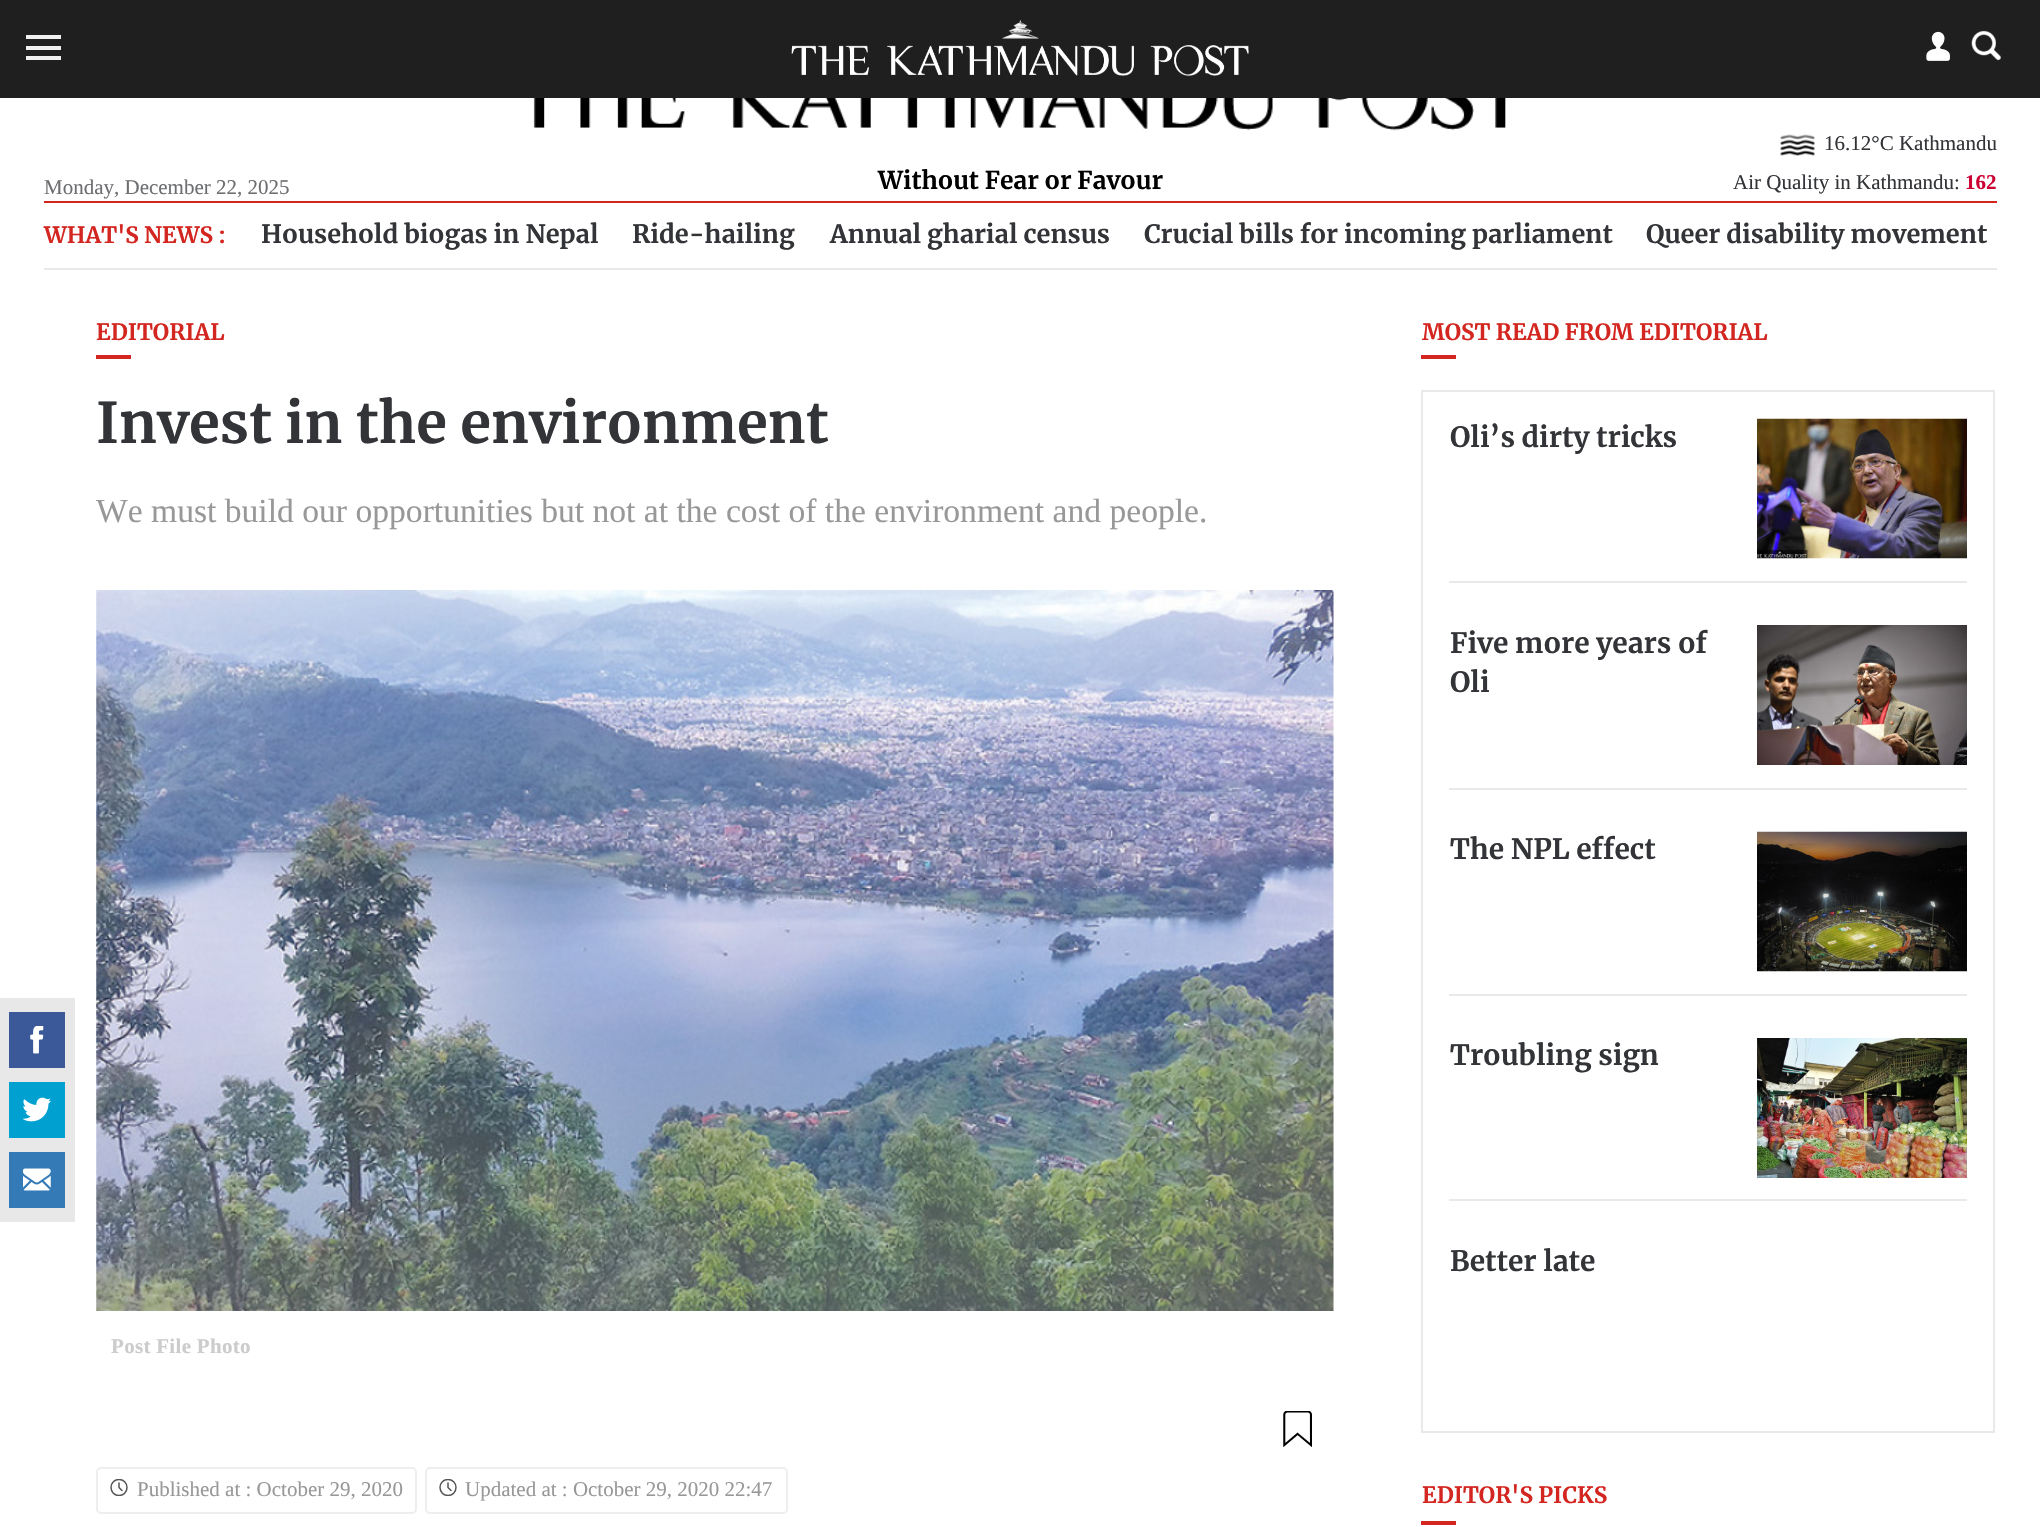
void draw(SkCanvas* canvas) {
    SkPaint paint;
    paint.setAntiAlias(true);
    auto spacedText = [&](const char* s, float x, float y, const SkFont& font, const SkPaint& ink, float letter, float word) {
        std::vector<SkGlyphID> glyphs(font.countText(s, strlen(s), SkTextEncoding::kUTF8));
        std::vector<float> xs(glyphs.size());
        font.textToGlyphs(s, strlen(s), SkTextEncoding::kUTF8, glyphs);
        font.getXPos(glyphs, xs, x);
        float extra = 0;
        for (size_t i = 0; i < glyphs.size(); i++) {
            xs[i] += extra;
            extra += letter + word * (glyphs[i] == font.unicharToGlyph(' '));
        }
        canvas->drawTextBlob(SkTextBlob::MakeFromPosHGlyphs(glyphs, xs, y, font), 0, 0, ink);
    };
    canvas->clear(0xFFFFFFFF);
    paint.setColor(0xFF1F1F1F);
    canvas->drawRect(SkRect::MakeXYWH(0, 0, 2040, 98), paint);
    paint.setColor(0xFFF0F0F0);
    canvas->drawRect(SkRect::MakeXYWH(26, 35, 35, 4), paint);
    canvas->drawRect(SkRect::MakeXYWH(26, 46, 35, 4), paint);
    canvas->drawRect(SkRect::MakeXYWH(26, 56, 35, 4), paint);
    canvas->drawImageRect(SkImages::DeferredFromEncodedData(SkData::MakeFromFileName("img1.png")), SkRect::MakeXYWH(1926, 31, 24, 30), SkSamplingOptions());
    canvas->drawImageRect(SkImages::DeferredFromEncodedData(SkData::MakeFromFileName("img2.png")), SkRect::MakeXYWH(1971, 30, 30, 31), SkSamplingOptions());
    canvas->drawImageRect(SkImages::DeferredFromEncodedData(SkData::MakeFromFileName("img3.png")), SkRect::MakeXYWH(791, 20, 458, 57), SkSamplingOptions());
    SkFont font1(fontMgr->matchFamilyStyle("Liberation Serif", SkFontStyle::Normal()), 21);
    font1.setSubpixel(true);
    paint.setColor(0xFF6D6E71);
    canvas->drawString("Monday, December 22, 2025", 44, 194, font1, paint);
    canvas->drawImageRect(SkImages::DeferredFromEncodedData(SkData::MakeFromFileName("img4.png")), SkRect::MakeXYWH(533, 98, 973, 33), SkSamplingOptions());
    SkFont font2(fontMgr->matchFamilyStyle("Merriweather", SkFontStyle::Bold()), 24.5f);
    font2.setSubpixel(true);
    paint.setColor(0xFF000000);
    canvas->drawString("Without Fear or Favour", 878, 189, font2, paint);
    canvas->drawImageRect(SkImages::DeferredFromEncodedData(SkData::MakeFromFileName("img5.png")), SkRect::MakeXYWH(1780, 134, 35, 22), SkSamplingOptions());
    paint.setColor(0xFF323437);
    canvas->drawString("16.12°C Kathmandu", 1824, 150, font1, paint);
    canvas->drawString("Air Quality in Kathmandu:", 1733, 189, font1, paint);
    SkFont font3(fontMgr->matchFamilyStyle("Liberation Serif", SkFontStyle::Bold()), 21);
    font3.setSubpixel(true);
    paint.setColor(0xFFCC0033);
    canvas->drawString("162", 1965, 189, font3, paint);
    paint.setColor(0xFFD42620);
    canvas->drawRect(SkRect::MakeXYWH(44, 201, 1953, 2), paint);
    paint.setColor(0xFFE9E9E9);
    canvas->drawRect(SkRect::MakeXYWH(44, 268, 1953, 2), paint);
    SkFont font4(fontMgr->matchFamilyStyle("Merriweather", SkFontStyle::Bold()), 22.4f);
    font4.setSubpixel(true);
    paint.setColor(0xFFD42620);
    canvas->drawString("WHAT'S NEWS :", 44, 243, font4, paint);
    SkFont font5(fontMgr->matchFamilyStyle("Merriweather", SkFontStyle::Bold()), 25.25f);
    font5.setSubpixel(true);
    paint.setColor(0xFF323437);
    canvas->drawString("Household biogas in Nepal", 261, 243, font5, paint);
    canvas->drawString("Ride-hailing", 632, 243, font5, paint);
    canvas->drawString("Annual gharial census", 830, 243, font5, paint);
    canvas->drawString("Crucial bills for incoming parliament", 1144, 243, font5, paint);
    canvas->drawString("Queer disability movement", 1646, 243, font5, paint);
    paint.setColor(0xFFD42620);
    canvas->drawString("EDITORIAL", 96, 340, font4, paint);
    canvas->drawRect(SkRect::MakeXYWH(96, 355, 35, 4), paint);
    SkFont font6(fontMgr->matchFamilyStyle("Merriweather", SkFontStyle::Bold()), 56);
    font6.setSubpixel(true);
    paint.setColor(0xFF323437);
    canvas->drawString("Invest in the environment", 96, 443, font6, paint);
    SkFont font7(fontMgr->matchFamilyStyle("Liberation Serif", SkFontStyle::Normal()), 33.6f);
    font7.setSubpixel(true);
    paint.setColor(0xFF989898);
    canvas->drawString("We must build our opportunities but not at the cost of the environment and people.", 96, 522, font7, paint);
    canvas->drawImageRect(SkImages::DeferredFromEncodedData(SkData::MakeFromFileName("img6.png")), SkRect::MakeXYWH(96, 590, 1238, 721), SkSamplingOptions());
    paint.setColor(0xFFCCCCCC);
    spacedText("Post File Photo", 111, 1353, font3, paint, 0.3f, 0);
    canvas->drawImageRect(SkImages::DeferredFromEncodedData(SkData::MakeFromFileName("img7.png")), SkRect::MakeXYWH(1283, 1411, 29, 36), SkSamplingOptions());
    paint.setColor(0xFFE8E8E8);
    canvas->drawRect(SkRect::MakeXYWH(0, 998, 75, 224), paint);
    paint.setColor(0xFF3B5998);
    canvas->drawRect(SkRect::MakeXYWH(9, 1012, 56, 56), paint);
    canvas->drawImageRect(SkImages::DeferredFromEncodedData(SkData::MakeFromFileName("img8.png")), SkRect::MakeXYWH(30, 1026, 14, 28), SkSamplingOptions());
    paint.setColor(0xFF00A0D1);
    canvas->drawRect(SkRect::MakeXYWH(9, 1082, 56, 56), paint);
    canvas->drawImageRect(SkImages::DeferredFromEncodedData(SkData::MakeFromFileName("img9.png")), SkRect::MakeXYWH(23, 1097, 28, 25), SkSamplingOptions());
    paint.setColor(0xFF337AB7);
    canvas->drawRect(SkRect::MakeXYWH(9, 1152, 56, 56), paint);
    canvas->drawImageRect(SkImages::DeferredFromEncodedData(SkData::MakeFromFileName("img10.png")), SkRect::MakeXYWH(23, 1168, 28, 23), SkSamplingOptions());
    paint.setStyle(SkPaint::kStroke_Style);
    paint.setStrokeWidth(2);
    paint.setColor(0xFFEEEEEE);
    canvas->drawRoundRect(SkRect::MakeXYWH(97, 1468, 319, 45), 4, 4, paint);
    canvas->save();
    canvas->clipRect(SkRect::MakeXYWH(110, 1479, 18, 17));
    paint.setStrokeWidth(1.5f);
    paint.setColor(0xFF555555);
    canvas->drawCircle(119, 1487.5f, 8, paint);
    canvas->restore();
    paint.setStrokeCap(SkPaint::kRound_Cap);
    paint.setStrokeJoin(SkPaint::kRound_Join);
    canvas->drawPath(SkPathBuilder().moveTo(119, 1483).lineTo(119, 1487.5f).lineTo(122, 1490.5f).detach(), paint);
    paint.setStyle(SkPaint::kFill_Style);
    paint.setColor(0xFF989898);
    canvas->drawString("Published at : October 29, 2020", 137, 1496, font1, paint);
    paint.setStyle(SkPaint::kStroke_Style);
    paint.setStrokeWidth(2);
    paint.setStrokeCap(SkPaint::kButt_Cap);
    paint.setStrokeJoin(SkPaint::kMiter_Join);
    paint.setColor(0xFFEEEEEE);
    canvas->drawRoundRect(SkRect::MakeXYWH(426, 1468, 361, 45), 4, 4, paint);
    canvas->save();
    canvas->clipRect(SkRect::MakeXYWH(439, 1479, 18, 17));
    paint.setStrokeWidth(1.5f);
    paint.setColor(0xFF555555);
    canvas->drawCircle(448, 1487.5f, 8, paint);
    canvas->restore();
    paint.setStrokeCap(SkPaint::kRound_Cap);
    paint.setStrokeJoin(SkPaint::kRound_Join);
    canvas->drawPath(SkPathBuilder().moveTo(448, 1483).lineTo(448, 1487.5f).lineTo(451, 1490.5f).detach(), paint);
    paint.setStyle(SkPaint::kFill_Style);
    paint.setColor(0xFF989898);
    canvas->drawString("Updated at : October 29, 2020 22:47", 465, 1496, font1, paint);
    paint.setColor(0xFFD42620);
    canvas->drawString("MOST READ FROM EDITORIAL", 1422, 340, font4, paint);
    canvas->drawRect(SkRect::MakeXYWH(1421, 355, 35, 4), paint);
    paint.setStyle(SkPaint::kStroke_Style);
    paint.setStrokeWidth(2);
    paint.setStrokeCap(SkPaint::kButt_Cap);
    paint.setStrokeJoin(SkPaint::kMiter_Join);
    paint.setColor(0xFFE9E9E9);
    canvas->drawRect(SkRect::MakeXYWH(1422, 391, 572, 1041), paint);
    paint.setStyle(SkPaint::kFill_Style);
    canvas->drawRect(SkRect::MakeXYWH(1449, 581, 518, 2), paint);
    SkFont font8(fontMgr->matchFamilyStyle("Merriweather", SkFontStyle::Bold()), 28);
    font8.setSubpixel(true);
    paint.setColor(0xFF323437);
    canvas->drawString("Oli’s dirty tricks", 1450, 447, font8, paint);
    canvas->drawImageRect(SkImages::DeferredFromEncodedData(SkData::MakeFromFileName("img11.png")), SkRect::MakeXYWH(1757, 418, 210, 141), SkSamplingOptions());
    paint.setColor(0xFFE9E9E9);
    canvas->drawRect(SkRect::MakeXYWH(1449, 788, 518, 2), paint);
    paint.setColor(0xFF323437);
    canvas->drawString("Five more years of", 1450, 653, font8, paint);
    canvas->drawString("Oli", 1450, 692, font8, paint);
    canvas->drawImageRect(SkImages::DeferredFromEncodedData(SkData::MakeFromFileName("img12.png")), SkRect::MakeXYWH(1757, 625, 210, 140), SkSamplingOptions());
    paint.setColor(0xFFE9E9E9);
    canvas->drawRect(SkRect::MakeXYWH(1449, 994, 518, 2), paint);
    paint.setColor(0xFF323437);
    canvas->drawString("The NPL effect", 1450, 859, font8, paint);
    canvas->drawImageRect(SkImages::DeferredFromEncodedData(SkData::MakeFromFileName("img13.png")), SkRect::MakeXYWH(1757, 831, 210, 141), SkSamplingOptions());
    paint.setColor(0xFFE9E9E9);
    canvas->drawRect(SkRect::MakeXYWH(1449, 1199, 518, 2), paint);
    paint.setColor(0xFF323437);
    canvas->drawString("Troubling sign", 1450, 1065, font8, paint);
    canvas->drawImageRect(SkImages::DeferredFromEncodedData(SkData::MakeFromFileName("img14.png")), SkRect::MakeXYWH(1757, 1038, 210, 140), SkSamplingOptions());
    canvas->drawString("Better late", 1450, 1271, font8, paint);
    paint.setColor(0xFFD42620);
    canvas->drawString("EDITOR'S PICKS", 1422, 1503, font4, paint);
    canvas->drawRect(SkRect::MakeXYWH(1421, 1521, 35, 4), paint);
}
